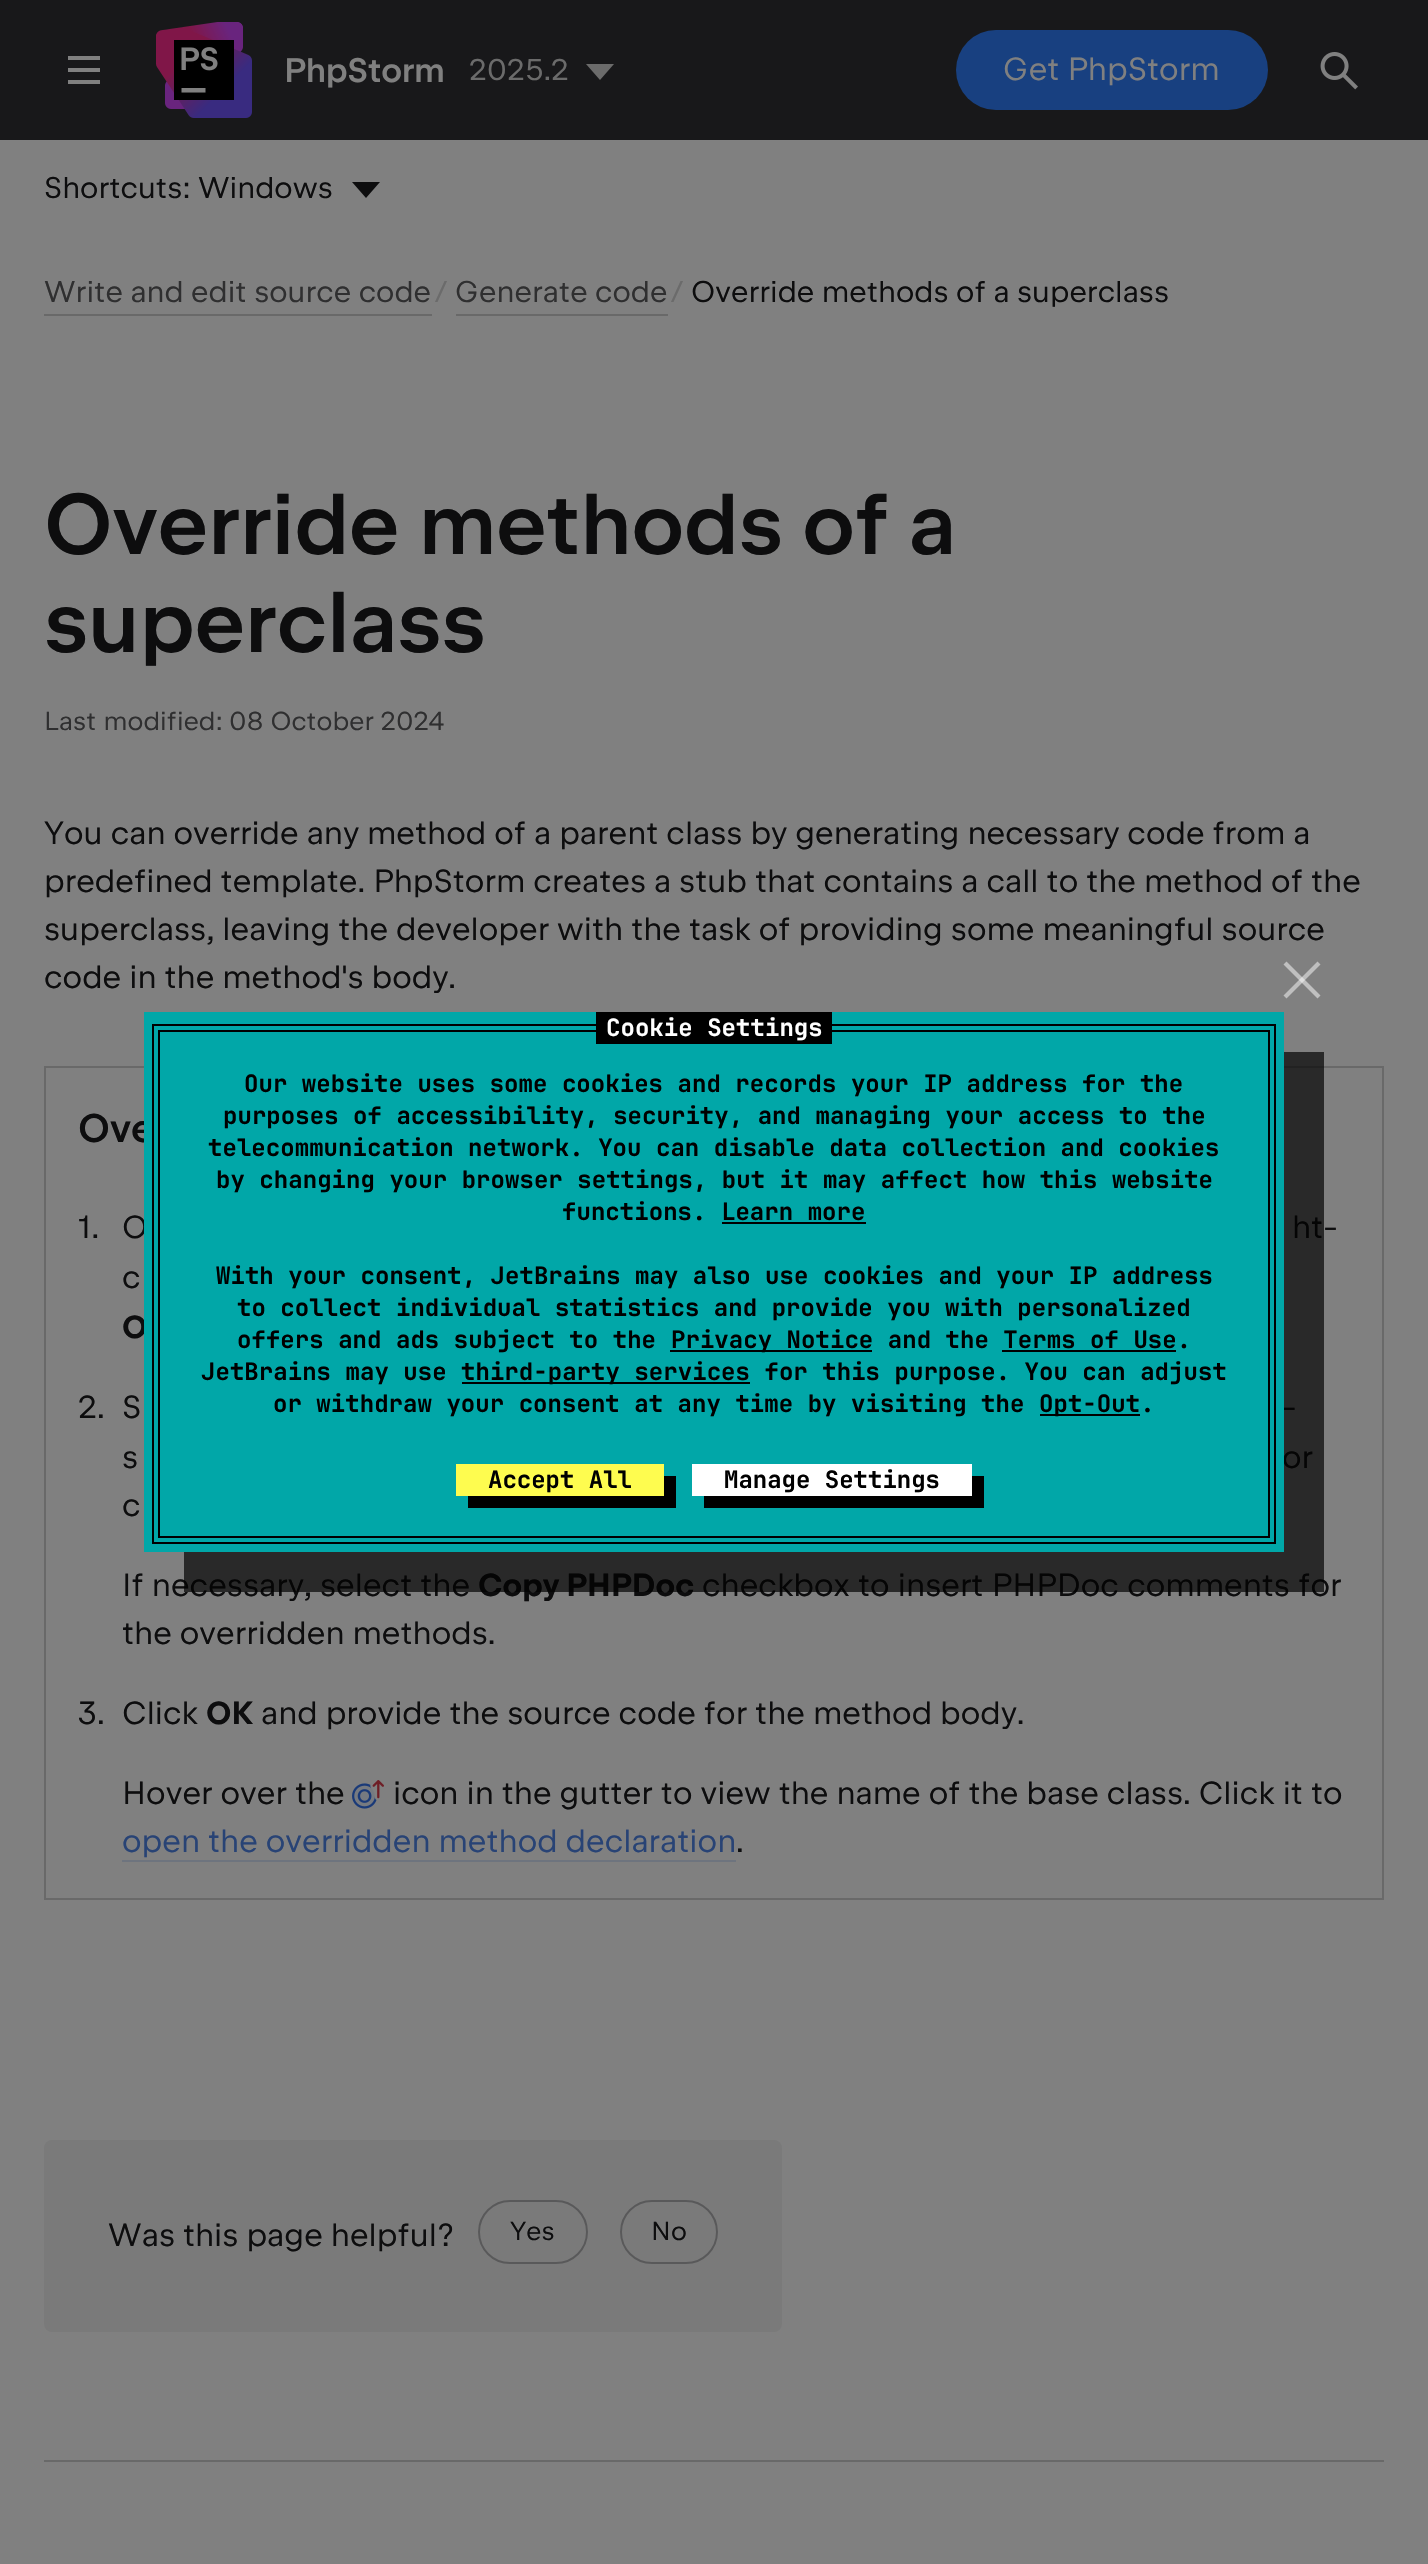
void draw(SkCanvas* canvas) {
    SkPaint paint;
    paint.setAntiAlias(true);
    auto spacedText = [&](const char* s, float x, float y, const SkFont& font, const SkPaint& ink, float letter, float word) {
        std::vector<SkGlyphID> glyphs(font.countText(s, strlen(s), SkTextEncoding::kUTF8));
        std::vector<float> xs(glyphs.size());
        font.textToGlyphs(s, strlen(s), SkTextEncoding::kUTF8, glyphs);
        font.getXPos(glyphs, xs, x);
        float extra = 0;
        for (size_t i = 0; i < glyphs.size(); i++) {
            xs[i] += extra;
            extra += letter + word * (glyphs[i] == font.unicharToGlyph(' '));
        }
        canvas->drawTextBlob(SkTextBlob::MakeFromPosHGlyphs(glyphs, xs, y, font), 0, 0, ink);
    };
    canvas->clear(0xFF808080);
    paint.setColor(0xFF18181A);
    canvas->drawRect(SkRect::MakeXYWH(0, 0, 1428, 140), paint);
    canvas->drawImageRect(SkImages::DeferredFromEncodedData(SkData::MakeFromFileName("img1.png")), SkRect::MakeXYWH(68, 56, 32, 28), SkSamplingOptions());
    canvas->drawImageRect(SkImages::DeferredFromEncodedData(SkData::MakeFromFileName("img2.png")), SkRect::MakeXYWH(156, 22, 96, 96), SkSamplingOptions());
    SkFont font1(fontMgr->matchFamilyStyle("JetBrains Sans", SkFontStyle(500, SkFontStyle::kNormal_Width, SkFontStyle::kUpright_Slant)), 34);
    font1.setSubpixel(true);
    paint.setColor(0xFF808080);
    spacedText("PhpStorm", 284, 82, font1, paint, -0.25f, 0);
    SkFont font2(fontMgr->matchFamilyStyle("JetBrains Sans", SkFontStyle::Normal()), 30);
    font2.setSubpixel(true);
    paint.setColor(0xFF6B6B6B);
    spacedText("2025.2", 469, 80, font2, paint, 0.05f, 0);
    canvas->drawPath(SkPathBuilder().moveTo(600, 80).lineTo(586, 64).lineTo(614, 64).close().detach(), paint);
    paint.setColor(0xFF184080);
    canvas->drawRoundRect(SkRect::MakeXYWH(956, 30, 312, 80), 40, 40, paint);
    SkFont font3(fontMgr->matchFamilyStyle("JetBrains Sans", SkFontStyle::Normal()), 32);
    font3.setSubpixel(true);
    paint.setColor(0xFF808080);
    spacedText("Get PhpStorm", 1003, 80, font3, paint, 0.05f, 0);
    canvas->drawImageRect(SkImages::DeferredFromEncodedData(SkData::MakeFromFileName("img3.png")), SkRect::MakeXYWH(1320, 52, 38, 38), SkSamplingOptions());
    paint.setColor(0xFF0D0D0E);
    spacedText("Shortcuts:", 44, 198, font2, paint, 0.05f, 0);
    spacedText("Windows", 198, 198, font2, paint, 0.05f, 0);
    canvas->drawPath(SkPathBuilder().moveTo(366, 198).lineTo(352, 182).lineTo(380, 182).close().detach(), paint);
    paint.setColor(0xFF2F2F30);
    spacedText("Write and edit source code", 44, 302, font2, paint, 0.05f, 0);
    paint.setColor(0xFF696969);
    canvas->drawRect(SkRect::MakeXYWH(44, 314, 388, 2), paint);
    paint.setColor(0xFF6B6B6B);
    spacedText("/", 435, 302, font2, paint, 0.05f, 0);
    paint.setColor(0xFF2F2F30);
    spacedText("Generate code", 455, 302, font2, paint, 0.05f, 0);
    paint.setColor(0xFF696969);
    canvas->drawRect(SkRect::MakeXYWH(456, 314, 212, 2), paint);
    paint.setColor(0xFF6B6B6B);
    spacedText("/", 671, 302, font2, paint, 0.05f, 0);
    paint.setColor(0xFF0D0D0E);
    spacedText("Override methods of a superclass", 691, 302, font2, paint, 0.05f, 0);
    SkFont font4(fontMgr->matchFamilyStyle("JetBrains Sans", SkFontStyle(500, SkFontStyle::kNormal_Width, SkFontStyle::kUpright_Slant)), 86);
    font4.setSubpixel(true);
    spacedText("Override methods of a", 44, 554, font4, paint, -0.1f, 0);
    spacedText("superclass", 44, 652, font4, paint, -0.1f, 0);
    SkFont font5(fontMgr->matchFamilyStyle("JetBrains Sans", SkFontStyle::Normal()), 26);
    font5.setSubpixel(true);
    paint.setColor(0xFF2F2F30);
    spacedText("Last modified:", 44, 730, font5, paint, 0.1f, 1);
    spacedText("08 October 2024", 229, 730, font5, paint, 0.1f, 0);
    paint.setColor(0xFF0D0D0E);
    spacedText("You can override any method of a parent class by generating necessary code from a", 44, 844, font3, paint, 0.05f, 0);
    spacedText("predefined template. PhpStorm creates a stub that contains a call to the method of the", 44, 892, font3, paint, 0.05f, 0);
    spacedText("superclass, leaving the developer with the task of providing some meaningful source", 44, 940, font3, paint, 0.05f, 0);
    spacedText("code in the method's body.", 44, 988, font3, paint, 0.05f, 0);
    paint.setStyle(SkPaint::kStroke_Style);
    paint.setStrokeWidth(2);
    paint.setColor(0xFF696969);
    canvas->drawRect(SkRect::MakeXYWH(45, 1067, 1338, 832), paint);
    SkFont font6(fontMgr->matchFamilyStyle("JetBrains Sans", SkFontStyle(500, SkFontStyle::kNormal_Width, SkFontStyle::kUpright_Slant)), 40);
    font6.setSubpixel(true);
    paint.setStyle(SkPaint::kFill_Style);
    paint.setColor(0xFF0D0D0E);
    canvas->drawString("Ove", 78, 1142, font6, paint);
    spacedText("1.", 78, 1238, font3, paint, 0.05f, 0);
    spacedText("O", 122, 1238, font3, paint, 0.05f, 0);
    spacedText("ht-", 1292, 1238, font3, paint, 0.05f, 0);
    spacedText("c", 122, 1288, font3, paint, 0.05f, 0);
    SkFont font7(fontMgr->matchFamilyStyle("JetBrains Sans", SkFontStyle(600, SkFontStyle::kNormal_Width, SkFontStyle::kUpright_Slant)), 32);
    font7.setSubpixel(true);
    spacedText("O", 122, 1338, font7, paint, 0.05f, 0);
    spacedText("2.", 78, 1418, font3, paint, 0.05f, 0);
    spacedText("S", 122, 1418, font3, paint, 0.05f, 0);
    spacedText("-", 1282, 1418, font3, paint, 0.05f, 0);
    spacedText("s", 122, 1468, font3, paint, 0.05f, 0);
    spacedText("or", 1282, 1468, font3, paint, 0.05f, 0);
    spacedText("c", 122, 1516, font3, paint, 0.05f, 0);
    spacedText("If necessary, select the", 122, 1596, font3, paint, 0.05f, 0);
    spacedText("Copy PHPDoc", 478, 1596, font7, paint, 0.05f, 0);
    spacedText("checkbox to insert PHPDoc comments for", 702, 1596, font3, paint, 0.05f, 0.25f);
    spacedText("the overridden methods.", 122, 1644, font3, paint, 0.05f, 0);
    spacedText("3.", 78, 1724, font3, paint, 0.05f, 0);
    spacedText("Click", 122, 1724, font3, paint, 0.05f, 0);
    spacedText("OK", 206, 1724, font7, paint, 0.05f, 0);
    spacedText("and provide the source code for the method body.", 261, 1724, font3, paint, 0.05f, 0);
    spacedText("Hover over the", 122, 1804, font3, paint, 0.05f, 0);
    canvas->drawImageRect(SkImages::DeferredFromEncodedData(SkData::MakeFromFileName("img4.png")), SkRect::MakeXYWH(352, 1780, 32, 29), SkSamplingOptions());
    spacedText("icon in the gutter to view the name of the base class. Click it to", 393, 1804, font3, paint, 0.05f, 0);
    paint.setColor(0xFF284375);
    spacedText("open the overridden method declaration", 122, 1852, font3, paint, 0.05f, 0);
    paint.setColor(0xFF6E747E);
    canvas->drawRect(SkRect::MakeXYWH(122, 1860, 614, 2), paint);
    paint.setColor(0xFF0D0D0E);
    spacedText(".", 736, 1852, font3, paint, 0.05f, 0);
    paint.setColor(0xFF7A7A7A);
    canvas->drawRoundRect(SkRect::MakeXYWH(44, 2140, 738, 192), 8, 8, paint);
    paint.setColor(0xFF0D0D0E);
    spacedText("Was this page helpful?", 108, 2246, font3, paint, 0.05f, 0);
    paint.setStyle(SkPaint::kStroke_Style);
    paint.setColor(0xFF59595A);
    canvas->drawRoundRect(SkRect::MakeXYWH(479, 2201, 108, 62), 31, 31, paint);
    paint.setStyle(SkPaint::kFill_Style);
    paint.setColor(0xFF0D0D0E);
    spacedText("Yes", 510, 2240, font5, paint, 0.1f, 0);
    paint.setStyle(SkPaint::kStroke_Style);
    paint.setColor(0xFF59595A);
    canvas->drawRoundRect(SkRect::MakeXYWH(621, 2201, 96, 62), 31, 31, paint);
    paint.setStyle(SkPaint::kFill_Style);
    paint.setColor(0xFF0D0D0E);
    spacedText("No", 651, 2240, font5, paint, 0.1f, 0);
    paint.setColor(0xFF696969);
    canvas->drawRect(SkRect::MakeXYWH(44, 2460, 1340, 2), paint);
    paint.setColor(0xAD000000);
    canvas->drawPath(SkPathBuilder().moveTo(184, 1552).lineTo(184, 1592).lineTo(1324, 1592).lineTo(1324, 1052).lineTo(1284, 1052).lineTo(1284, 1552).close().detach(), paint);
    paint.setColor(0xFF01A7A8);
    canvas->drawRect(SkRect::MakeXYWH(144, 1012, 1140, 540), paint);
    paint.setColor(0xFFBFBFBF);
    canvas->drawPath(SkPathBuilder().moveTo(1283.5f, 995.5f).lineTo(1317.5f, 961.5f).lineTo(1320.5f, 964.5f).lineTo(1286.5f, 998.5f).close().detach(), paint);
    paint.setColor(0x80FFFFFF);
    canvas->drawPath(SkPathBuilder().moveTo(1286.5f, 961.5f).lineTo(1320.5f, 995.5f).lineTo(1317.5f, 998.5f).lineTo(1283.5f, 964.5f).close().detach(), paint);
    paint.setColor(0xFF000000);
    canvas->drawRect(SkRect::MakeXYWH(158, 1030, 1112, 2), paint);
    canvas->drawRect(SkRect::MakeXYWH(1268, 1030, 2, 508), paint);
    canvas->drawRect(SkRect::MakeXYWH(158, 1030, 2, 434), paint);
    canvas->drawRect(SkRect::MakeXYWH(152, 1024, 1124, 2), paint);
    canvas->drawRect(SkRect::MakeXYWH(596, 1012, 236, 32), paint);
    SkFont font8(fontMgr->matchFamilyStyle("JetBrains Mono", SkFontStyle::Bold()), 24);
    font8.setSubpixel(true);
    paint.setColor(0xFFFFFFFF);
    spacedText("Cookie Settings", 606, 1036, font8, paint, 0.05f, 0);
    paint.setColor(0xFF000000);
    canvas->drawRect(SkRect::MakeXYWH(1274, 1024, 2, 520), paint);
    canvas->drawRect(SkRect::MakeXYWH(152, 1024, 2, 438), paint);
    spacedText("Our website uses some cookies and records your IP address for the", 244, 1092, font8, paint, 0.05f, 0);
    spacedText("purposes of accessibility, security, and managing your access to the", 223, 1124, font8, paint, 0.05f, 0);
    spacedText("telecommunication network. You can disable data collection and cookies", 208, 1156, font8, paint, 0.05f, 0);
    spacedText("by changing your browser settings, but it may affect how this website", 216, 1188, font8, paint, 0.05f, 0);
    spacedText("functions. Learn more", 562, 1220, font8, paint, 0.05f, 0);
    canvas->drawRect(SkRect::MakeXYWH(722, 1222, 144, 2), paint);
    spacedText("With your consent, JetBrains may also use cookies and your IP address", 216, 1284, font8, paint, 0.05f, 0);
    spacedText("to collect individual statistics and provide you with personalized", 237, 1316, font8, paint, 0.05f, 0);
    spacedText("offers and ads subject to the", 237, 1348, font8, paint, 0.05f, 0);
    canvas->drawRect(SkRect::MakeXYWH(670, 1350, 202, 2), paint);
    spacedText("Privacy Notice and the Terms of Use.", 671, 1348, font8, paint, 0.05f, 0);
    canvas->drawRect(SkRect::MakeXYWH(1002, 1350, 174, 2), paint);
    spacedText("JetBrains may use", 201, 1380, font8, paint, 0.05f, 0);
    canvas->drawRect(SkRect::MakeXYWH(462, 1382, 288, 2), paint);
    spacedText("third-party services for this purpose. You can adjust", 461, 1380, font8, paint, 0.05f, 0);
    spacedText("or withdraw your consent at any time by visiting the", 273, 1412, font8, paint, 0.05f, 0);
    canvas->drawRect(SkRect::MakeXYWH(1040, 1414, 100, 2), paint);
    spacedText("Opt-Out.", 1039, 1412, font8, paint, 0.05f, 0);
    canvas->drawRect(SkRect::MakeXYWH(158, 1536, 1112, 2), paint);
    canvas->drawRect(SkRect::MakeXYWH(158, 1464, 2, 74), paint);
    canvas->drawRect(SkRect::MakeXYWH(152, 1542, 1124, 2), paint);
    canvas->drawRect(SkRect::MakeXYWH(152, 1462, 2, 82), paint);
    canvas->drawPath(SkPathBuilder().moveTo(468, 1496).lineTo(468, 1508).lineTo(676, 1508).lineTo(676, 1476).lineTo(664, 1476).lineTo(664, 1496).close().detach(), paint);
    paint.setColor(0xFFFEFC4F);
    canvas->drawRect(SkRect::MakeXYWH(456, 1464, 208, 32), paint);
    paint.setColor(0xFF000000);
    canvas->drawString("Accept All", 488, 1488, font8, paint);
    canvas->drawPath(SkPathBuilder().moveTo(704, 1496).lineTo(704, 1508).lineTo(984, 1508).lineTo(984, 1476).lineTo(972, 1476).lineTo(972, 1496).close().detach(), paint);
    paint.setColor(0xFFFFFFFF);
    canvas->drawRect(SkRect::MakeXYWH(692, 1464, 280, 32), paint);
    paint.setColor(0xFF000000);
    canvas->drawString("Manage Settings", 724, 1488, font8, paint);
}
